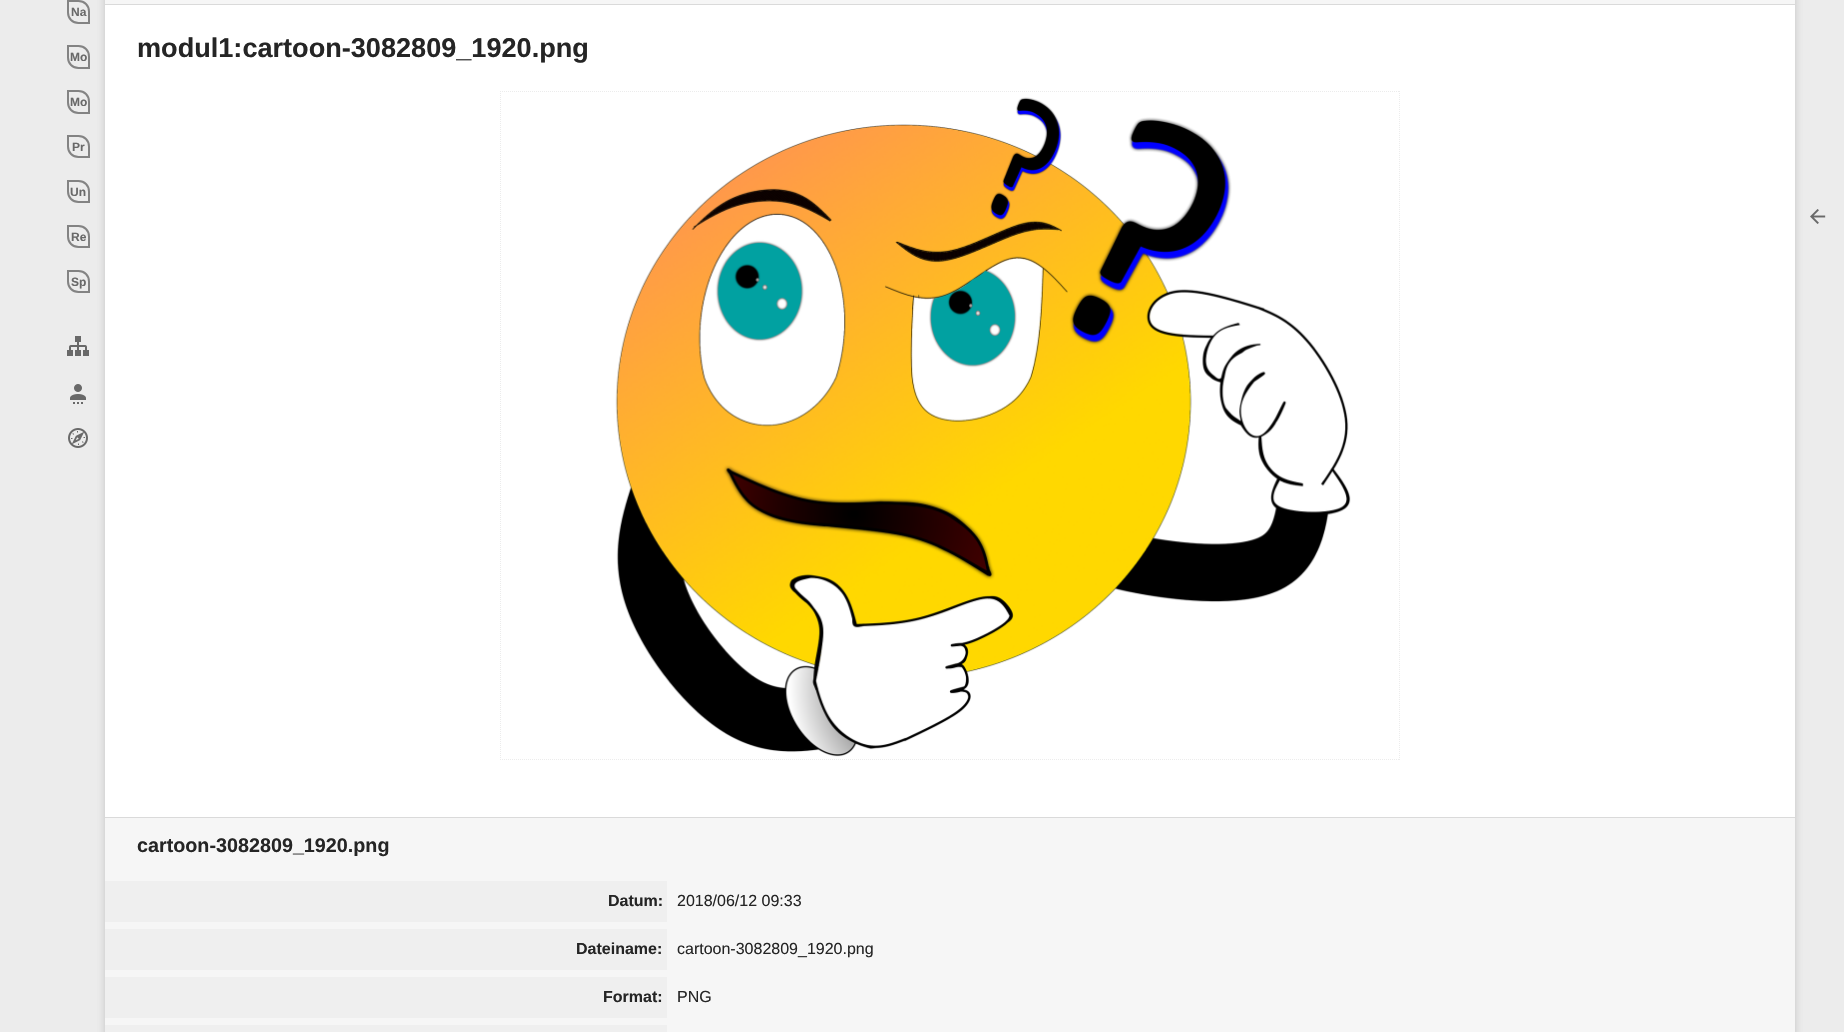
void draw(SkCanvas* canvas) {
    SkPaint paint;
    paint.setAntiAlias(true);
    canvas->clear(0xFFECECEC);
    paint.setStyle(SkPaint::kStroke_Style);
    paint.setStrokeWidth(2);
    paint.setColor(0xFF838383);
    canvas->drawPath(SkPathBuilder().moveTo(68, 1).lineTo(78.5f, 1).cubicTo(84.5f, 1, 89, 5.5f, 89, 11.5f).lineTo(89, 23).lineTo(78.5f, 23).cubicTo(72.5f, 23, 68, 18.5f, 68, 12.5f).close().detach(), paint);
    SkFont font1(fontMgr->matchFamilyStyle("Liberation Sans", SkFontStyle::Bold()), 12);
    font1.setSubpixel(true);
    paint.setStyle(SkPaint::kFill_Style);
    paint.setColor(0xFF696969);
    canvas->drawString("Na", 71, 16, font1, paint);
    paint.setStyle(SkPaint::kStroke_Style);
    paint.setColor(0xFF838383);
    canvas->drawPath(SkPathBuilder().moveTo(68, 46).lineTo(78.5f, 46).cubicTo(84.5f, 46, 89, 50.5f, 89, 56.5f).lineTo(89, 68).lineTo(78.5f, 68).cubicTo(72.5f, 68, 68, 63.5f, 68, 57.5f).close().detach(), paint);
    paint.setStyle(SkPaint::kFill_Style);
    paint.setColor(0xFF696969);
    canvas->drawString("Mo", 70, 61, font1, paint);
    paint.setStyle(SkPaint::kStroke_Style);
    paint.setColor(0xFF838383);
    canvas->drawPath(SkPathBuilder().moveTo(68, 91).lineTo(78.5f, 91).cubicTo(84.5f, 91, 89, 95.5f, 89, 101.5f).lineTo(89, 113).lineTo(78.5f, 113).cubicTo(72.5f, 113, 68, 108.5f, 68, 102.5f).close().detach(), paint);
    paint.setStyle(SkPaint::kFill_Style);
    paint.setColor(0xFF696969);
    canvas->drawString("Mo", 70, 106, font1, paint);
    paint.setStyle(SkPaint::kStroke_Style);
    paint.setColor(0xFF838383);
    canvas->drawPath(SkPathBuilder().moveTo(68, 136).lineTo(78.5f, 136).cubicTo(84.5f, 136, 89, 140.5f, 89, 146.5f).lineTo(89, 157).lineTo(78.5f, 157).cubicTo(72.5f, 157, 68, 152.5f, 68, 146.5f).close().detach(), paint);
    paint.setStyle(SkPaint::kFill_Style);
    paint.setColor(0xFF696969);
    canvas->drawString("Pr", 72, 151, font1, paint);
    paint.setStyle(SkPaint::kStroke_Style);
    paint.setColor(0xFF838383);
    canvas->drawPath(SkPathBuilder().moveTo(68, 181).lineTo(78.5f, 181).cubicTo(84.5f, 181, 89, 185.5f, 89, 191.5f).lineTo(89, 202).lineTo(78.5f, 202).cubicTo(72.5f, 202, 68, 197.5f, 68, 191.5f).close().detach(), paint);
    paint.setStyle(SkPaint::kFill_Style);
    paint.setColor(0xFF696969);
    canvas->drawString("Un", 70, 196, font1, paint);
    paint.setStyle(SkPaint::kStroke_Style);
    paint.setColor(0xFF838383);
    canvas->drawPath(SkPathBuilder().moveTo(68, 226).lineTo(78.5f, 226).cubicTo(84.5f, 226, 89, 230.5f, 89, 236.5f).lineTo(89, 247).lineTo(78.5f, 247).cubicTo(72.5f, 247, 68, 242.5f, 68, 236.5f).close().detach(), paint);
    paint.setStyle(SkPaint::kFill_Style);
    paint.setColor(0xFF696969);
    canvas->drawString("Re", 71, 241, font1, paint);
    paint.setStyle(SkPaint::kStroke_Style);
    paint.setColor(0xFF838383);
    canvas->drawPath(SkPathBuilder().moveTo(68, 271).lineTo(78.5f, 271).cubicTo(84.5f, 271, 89, 275.5f, 89, 281.5f).lineTo(89, 292).lineTo(78.5f, 292).cubicTo(72.5f, 292, 68, 287.5f, 68, 281.5f).close().detach(), paint);
    paint.setStyle(SkPaint::kFill_Style);
    paint.setColor(0xFF696969);
    canvas->drawString("Sp", 71, 286, font1, paint);
    canvas->drawImageRect(SkImages::DeferredFromEncodedData(SkData::MakeFromFileName("img1.png")), SkRect::MakeXYWH(67, 336, 22, 20), SkSamplingOptions());
    canvas->drawImageRect(SkImages::DeferredFromEncodedData(SkData::MakeFromFileName("img2.png")), SkRect::MakeXYWH(70, 384, 16, 20), SkSamplingOptions());
    canvas->drawImageRect(SkImages::DeferredFromEncodedData(SkData::MakeFromFileName("img3.png")), SkRect::MakeXYWH(68, 428, 20, 20), SkSamplingOptions());
    paint.setColor(0x80999999);
    paint.setMaskFilter(SkMaskFilter::MakeBlur(kNormal_SkBlurStyle, 4));
    canvas->drawRoundRect(SkRect::MakeXYWH(105, -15, 1690, 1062), 3, 3, paint);
    paint.setMaskFilter(nullptr);
    paint.setColor(0xFFFFFFFF);
    canvas->drawRect(SkRect::MakeXYWH(105, 5, 1690, 812), paint);
    paint.setColor(0xFFF6F6F6);
    canvas->drawRect(SkRect::MakeXYWH(105, 0, 1690, 4), paint);
    paint.setColor(0xFFDADADA);
    canvas->drawRect(SkRect::MakeXYWH(105, 4, 1690, 1), paint);
    SkFont font2(fontMgr->matchFamilyStyle("Liberation Sans", SkFontStyle::Bold()), 27.1f);
    font2.setSubpixel(true);
    paint.setColor(0xFF252525);
    canvas->drawString("modul1:cartoon-3082809_1920.png", 137, 57, font2, paint);
    paint.setStyle(SkPaint::kStroke_Style);
    paint.setStrokeWidth(1);
    paint.setColor(0xFFECECEC);
    paint.setPathEffect(SkDashPathEffect::Make({{1, 1}}, 0));
    canvas->drawPath(SkPathBuilder().moveTo(500, 91.5f).lineTo(1400, 91.5f).detach(), paint);
    paint.setPathEffect(nullptr);
    paint.setPathEffect(SkDashPathEffect::Make({{1, 1}}, 0));
    canvas->drawPath(SkPathBuilder().moveTo(1399.5f, 91).lineTo(1399.5f, 760).detach(), paint);
    paint.setPathEffect(nullptr);
    paint.setPathEffect(SkDashPathEffect::Make({{1, 1}}, 0));
    canvas->drawPath(SkPathBuilder().moveTo(500, 759.5f).lineTo(1400, 759.5f).detach(), paint);
    paint.setPathEffect(nullptr);
    paint.setPathEffect(SkDashPathEffect::Make({{1, 1}}, 0));
    canvas->drawPath(SkPathBuilder().moveTo(500.5f, 91).lineTo(500.5f, 760).detach(), paint);
    paint.setPathEffect(nullptr);
    canvas->drawImageRect(SkImages::DeferredFromEncodedData(SkData::MakeFromFileName("img4.png")), SkRect::MakeXYWH(615, 97, 736, 660), SkSamplingOptions());
    paint.setStyle(SkPaint::kFill_Style);
    paint.setColor(0xFFF6F6F6);
    canvas->drawRect(SkRect::MakeXYWH(105, 818, 1690, 214), paint);
    paint.setColor(0xFFDADADA);
    canvas->drawRect(SkRect::MakeXYWH(105, 817, 1690, 1), paint);
    SkFont font3(fontMgr->matchFamilyStyle("Liberation Sans", SkFontStyle::Bold()), 19.75f);
    font3.setSubpixel(true);
    paint.setColor(0xFF252525);
    canvas->drawString("cartoon-3082809_1920.png", 137, 852, font3, paint);
    paint.setColor(0xFFEFEFEF);
    canvas->drawRect(SkRect::MakeXYWH(105, 881, 562, 41), paint);
    SkFont font4(fontMgr->matchFamilyStyle("Liberation Sans", SkFontStyle::Bold()), 16);
    font4.setSubpixel(true);
    paint.setColor(0xFF252525);
    canvas->drawString("Datum:", 608, 906, font4, paint);
    SkFont font5(fontMgr->matchFamilyStyle("Liberation Sans", SkFontStyle::Normal()), 16);
    font5.setSubpixel(true);
    canvas->drawString("2018/06/12 09:33", 677, 906, font5, paint);
    paint.setColor(0xFFEFEFEF);
    canvas->drawRect(SkRect::MakeXYWH(105, 929, 562, 41), paint);
    paint.setColor(0xFF252525);
    canvas->drawString("Dateiname:", 576, 954, font4, paint);
    canvas->drawString("cartoon-3082809_1920.png", 677, 954, font5, paint);
    paint.setColor(0xFFEFEFEF);
    canvas->drawRect(SkRect::MakeXYWH(105, 977, 562, 41), paint);
    paint.setColor(0xFF252525);
    canvas->drawString("Format:", 603, 1002, font4, paint);
    canvas->drawString("PNG", 677, 1002, font5, paint);
    paint.setColor(0xFFEFEFEF);
    canvas->drawRect(SkRect::MakeXYWH(105, 1025, 562, 7), paint);
    canvas->drawImageRect(SkImages::DeferredFromEncodedData(SkData::MakeFromFileName("img5.png")), SkRect::MakeXYWH(1810, 209, 16, 15), SkSamplingOptions());
}
